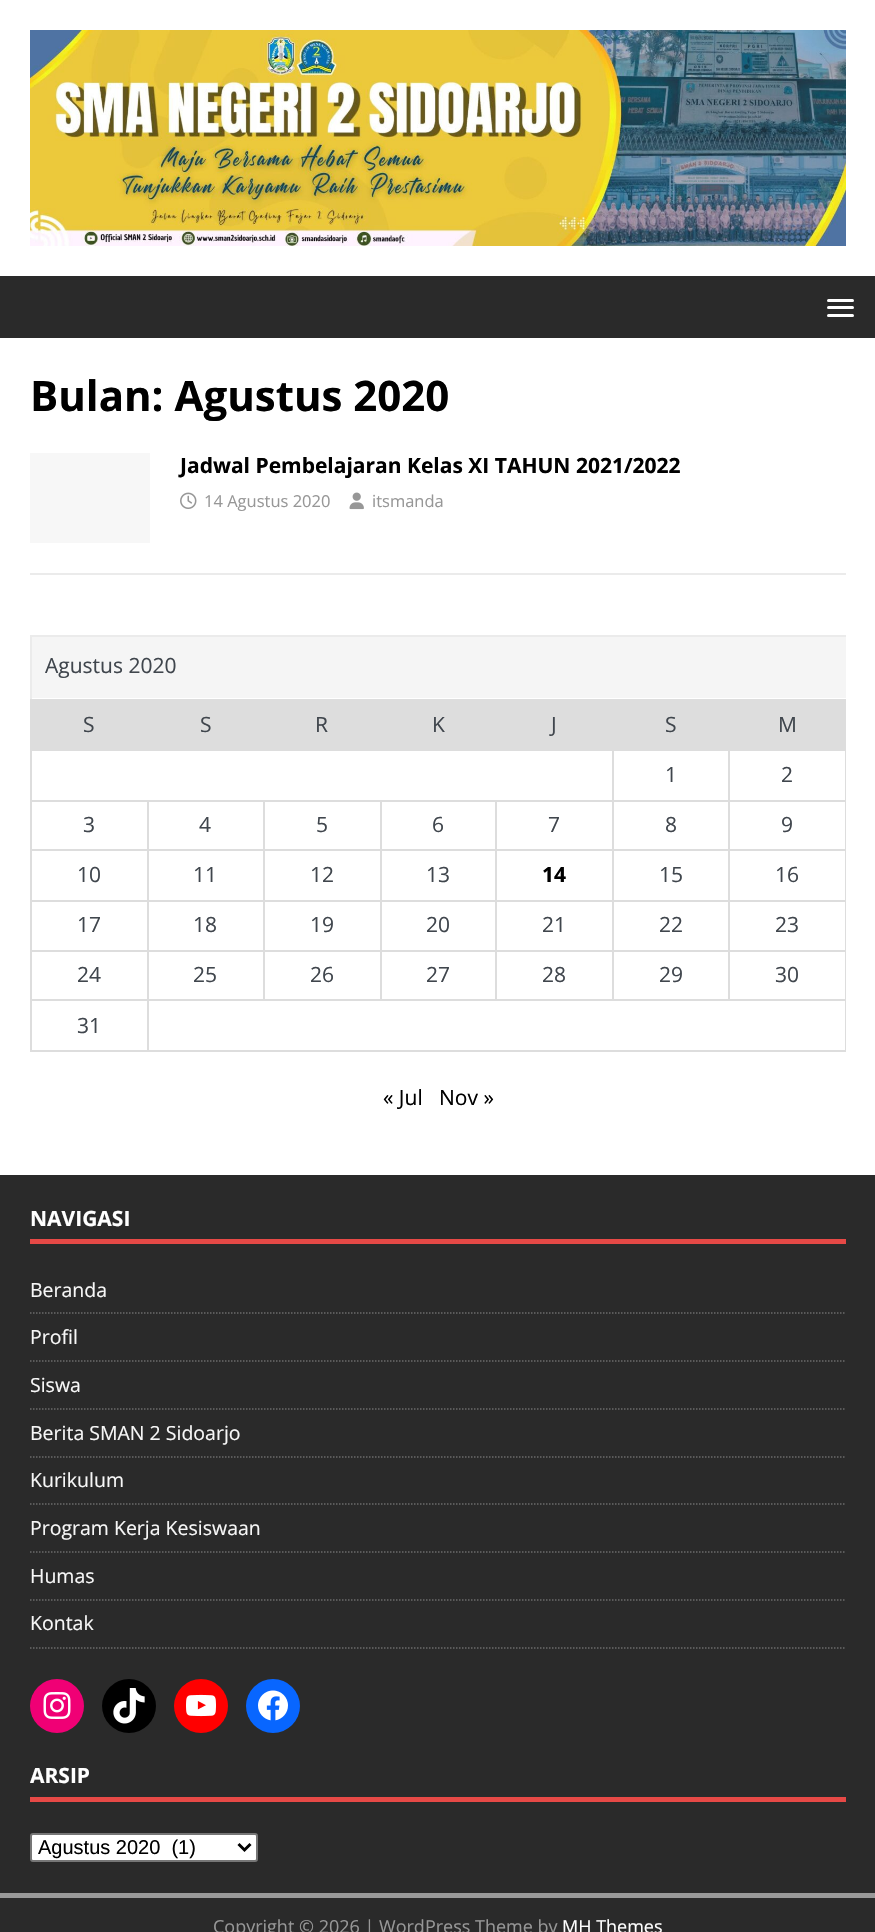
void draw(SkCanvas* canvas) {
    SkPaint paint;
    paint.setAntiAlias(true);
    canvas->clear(0xFFFFFFFF);
    canvas->drawImageRect(SkImages::DeferredFromEncodedData(SkData::MakeFromFileName("img1.png")), SkRect::MakeXYWH(30, 30, 816, 216), SkSamplingOptions());
    paint.setColor(0xFF2A2A2A);
    canvas->drawRect(SkRect::MakeXYWH(0, 276, 875, 62), paint);
    paint.setColor(0xFFFFFFFF);
    canvas->drawRoundRect(SkRect::MakeXYWH(827, 299, 27, 3), 1.5f, 1.5f, paint);
    canvas->drawRoundRect(SkRect::MakeXYWH(827, 306, 27, 3), 1.5f, 1.5f, paint);
    canvas->drawRoundRect(SkRect::MakeXYWH(827, 314, 27, 3), 1.5f, 1.5f, paint);
    SkFont font1(fontMgr->matchFamilyStyle("Open Sans", SkFontStyle::Bold()), 42);
    font1.setSubpixel(true);
    paint.setColor(0xFF000000);
    canvas->drawString("Bulan: Agustus 2020", 30, 411, font1, paint);
    paint.setColor(0xFFEBEBEB);
    canvas->drawRect(SkRect::MakeXYWH(30, 573, 816, 2), paint);
    paint.setColor(0xFFF7F7F7);
    canvas->drawRect(SkRect::MakeXYWH(30, 453, 120, 90), paint);
    SkFont font2(fontMgr->matchFamilyStyle("Open Sans", SkFontStyle::Bold()), 21);
    font2.setSubpixel(true);
    paint.setColor(0xFF000000);
    canvas->drawString("Jadwal Pembelajaran Kelas XI TAHUN 2021/2022", 180, 473, font2, paint);
    canvas->drawImageRect(SkImages::DeferredFromEncodedData(SkData::MakeFromFileName("img2.png")), SkRect::MakeXYWH(180, 492, 17, 17), SkSamplingOptions());
    SkFont font3(fontMgr->matchFamilyStyle("Open Sans", SkFontStyle::Normal()), 16.5f);
    font3.setSubpixel(true);
    paint.setColor(0xFF979797);
    canvas->drawString("14 Agustus 2020", 204, 507, font3, paint);
    canvas->drawImageRect(SkImages::DeferredFromEncodedData(SkData::MakeFromFileName("img3.png")), SkRect::MakeXYWH(349, 492, 15, 18), SkSamplingOptions());
    canvas->drawString("itsmanda", 372, 507, font3, paint);
    paint.setColor(0xFFEBEBEB);
    canvas->drawRect(SkRect::MakeXYWH(30, 635, 816, 2), paint);
    canvas->drawRect(SkRect::MakeXYWH(30, 635, 2, 64), paint);
    paint.setColor(0xFFF5F5F5);
    canvas->drawRect(SkRect::MakeXYWH(32, 637, 814, 61), paint);
    SkFont font4(fontMgr->matchFamilyStyle("Open Sans", SkFontStyle::Normal()), 21);
    font4.setSubpixel(true);
    paint.setColor(0xFF40464D);
    canvas->drawString("Agustus 2020", 45, 673, font4, paint);
    paint.setColor(0xFFDDDDDD);
    canvas->drawRect(SkRect::MakeXYWH(32, 701, 814, 48), paint);
    canvas->drawRect(SkRect::MakeXYWH(30, 699, 816, 2), paint);
    canvas->drawRect(SkRect::MakeXYWH(728, 749, 118, 2), paint);
    canvas->drawRect(SkRect::MakeXYWH(728, 800, 118, 2), paint);
    canvas->drawRect(SkRect::MakeXYWH(728, 849, 118, 2), paint);
    canvas->drawRect(SkRect::MakeXYWH(728, 900, 118, 2), paint);
    canvas->drawRect(SkRect::MakeXYWH(728, 950, 118, 2), paint);
    canvas->drawRect(SkRect::MakeXYWH(147, 999, 699, 2), paint);
    canvas->drawRect(SkRect::MakeXYWH(728, 950, 2, 51), paint);
    canvas->drawRect(SkRect::MakeXYWH(612, 950, 117, 2), paint);
    canvas->drawRect(SkRect::MakeXYWH(728, 900, 2, 51), paint);
    canvas->drawRect(SkRect::MakeXYWH(612, 900, 117, 2), paint);
    canvas->drawRect(SkRect::MakeXYWH(728, 849, 2, 53), paint);
    canvas->drawRect(SkRect::MakeXYWH(612, 849, 117, 2), paint);
    canvas->drawRect(SkRect::MakeXYWH(728, 800, 2, 51), paint);
    canvas->drawRect(SkRect::MakeXYWH(612, 800, 117, 2), paint);
    canvas->drawRect(SkRect::MakeXYWH(728, 749, 2, 52), paint);
    canvas->drawRect(SkRect::MakeXYWH(612, 749, 117, 2), paint);
    canvas->drawRect(SkRect::MakeXYWH(612, 950, 2, 51), paint);
    canvas->drawRect(SkRect::MakeXYWH(495, 950, 119, 2), paint);
    canvas->drawRect(SkRect::MakeXYWH(612, 900, 2, 51), paint);
    canvas->drawRect(SkRect::MakeXYWH(495, 900, 119, 2), paint);
    canvas->drawRect(SkRect::MakeXYWH(612, 849, 2, 53), paint);
    canvas->drawRect(SkRect::MakeXYWH(495, 849, 119, 2), paint);
    canvas->drawRect(SkRect::MakeXYWH(612, 800, 2, 51), paint);
    canvas->drawRect(SkRect::MakeXYWH(495, 800, 119, 2), paint);
    canvas->drawRect(SkRect::MakeXYWH(612, 749, 2, 52), paint);
    canvas->drawRect(SkRect::MakeXYWH(30, 749, 584, 2), paint);
    canvas->drawRect(SkRect::MakeXYWH(495, 950, 2, 51), paint);
    canvas->drawRect(SkRect::MakeXYWH(380, 950, 117, 2), paint);
    canvas->drawRect(SkRect::MakeXYWH(495, 900, 2, 51), paint);
    canvas->drawRect(SkRect::MakeXYWH(380, 900, 117, 2), paint);
    canvas->drawRect(SkRect::MakeXYWH(495, 849, 2, 53), paint);
    canvas->drawRect(SkRect::MakeXYWH(380, 849, 117, 2), paint);
    canvas->drawRect(SkRect::MakeXYWH(495, 800, 2, 51), paint);
    canvas->drawRect(SkRect::MakeXYWH(380, 800, 117, 2), paint);
    canvas->drawRect(SkRect::MakeXYWH(380, 950, 2, 51), paint);
    canvas->drawRect(SkRect::MakeXYWH(263, 950, 118, 2), paint);
    canvas->drawRect(SkRect::MakeXYWH(380, 900, 2, 51), paint);
    canvas->drawRect(SkRect::MakeXYWH(263, 900, 118, 2), paint);
    canvas->drawRect(SkRect::MakeXYWH(380, 849, 2, 53), paint);
    canvas->drawRect(SkRect::MakeXYWH(263, 849, 118, 2), paint);
    canvas->drawRect(SkRect::MakeXYWH(380, 800, 2, 51), paint);
    canvas->drawRect(SkRect::MakeXYWH(263, 800, 118, 2), paint);
    canvas->drawRect(SkRect::MakeXYWH(263, 950, 2, 51), paint);
    canvas->drawRect(SkRect::MakeXYWH(147, 950, 117, 2), paint);
    canvas->drawRect(SkRect::MakeXYWH(263, 900, 2, 51), paint);
    canvas->drawRect(SkRect::MakeXYWH(147, 900, 117, 2), paint);
    canvas->drawRect(SkRect::MakeXYWH(263, 849, 2, 53), paint);
    canvas->drawRect(SkRect::MakeXYWH(147, 849, 117, 2), paint);
    canvas->drawRect(SkRect::MakeXYWH(263, 800, 2, 51), paint);
    canvas->drawRect(SkRect::MakeXYWH(147, 800, 117, 2), paint);
    canvas->drawRect(SkRect::MakeXYWH(845, 999, 1, 53), paint);
    canvas->drawRect(SkRect::MakeXYWH(147, 1050, 699, 2), paint);
    canvas->drawRect(SkRect::MakeXYWH(147, 999, 2, 53), paint);
    canvas->drawRect(SkRect::MakeXYWH(30, 999, 119, 2), paint);
    canvas->drawRect(SkRect::MakeXYWH(147, 950, 2, 51), paint);
    canvas->drawRect(SkRect::MakeXYWH(30, 950, 119, 2), paint);
    canvas->drawRect(SkRect::MakeXYWH(147, 900, 2, 51), paint);
    canvas->drawRect(SkRect::MakeXYWH(30, 900, 119, 2), paint);
    canvas->drawRect(SkRect::MakeXYWH(147, 849, 2, 53), paint);
    canvas->drawRect(SkRect::MakeXYWH(30, 849, 119, 2), paint);
    canvas->drawRect(SkRect::MakeXYWH(147, 800, 2, 51), paint);
    canvas->drawRect(SkRect::MakeXYWH(30, 800, 119, 2), paint);
    canvas->drawRect(SkRect::MakeXYWH(30, 1050, 119, 2), paint);
    canvas->drawRect(SkRect::MakeXYWH(30, 999, 2, 53), paint);
    canvas->drawRect(SkRect::MakeXYWH(30, 950, 2, 51), paint);
    canvas->drawRect(SkRect::MakeXYWH(30, 900, 2, 51), paint);
    canvas->drawRect(SkRect::MakeXYWH(30, 849, 2, 53), paint);
    canvas->drawRect(SkRect::MakeXYWH(30, 800, 2, 51), paint);
    canvas->drawRect(SkRect::MakeXYWH(30, 749, 2, 52), paint);
    canvas->drawRect(SkRect::MakeXYWH(30, 699, 2, 51), paint);
    paint.setColor(0xFF40464D);
    canvas->drawString("S", 83, 732, font4, paint);
    canvas->drawString("S", 200, 732, font4, paint);
    canvas->drawString("R", 315, 732, font4, paint);
    canvas->drawString("K", 432, 732, font4, paint);
    canvas->drawString("J", 551, 732, font4, paint);
    canvas->drawString("S", 665, 732, font4, paint);
    canvas->drawString("M", 778, 732, font4, paint);
    canvas->drawString("1", 665, 782, font4, paint);
    paint.setColor(0xFFDDDDDD);
    canvas->drawRect(SkRect::MakeXYWH(845, 950, 1, 51), paint);
    canvas->drawRect(SkRect::MakeXYWH(845, 900, 1, 51), paint);
    canvas->drawRect(SkRect::MakeXYWH(845, 849, 1, 53), paint);
    canvas->drawRect(SkRect::MakeXYWH(845, 800, 1, 51), paint);
    canvas->drawRect(SkRect::MakeXYWH(845, 749, 1, 52), paint);
    paint.setColor(0xFF40464D);
    canvas->drawString("2", 781, 782, font4, paint);
    canvas->drawString("3", 83, 832, font4, paint);
    canvas->drawString("4", 199, 832, font4, paint);
    canvas->drawString("5", 316, 832, font4, paint);
    canvas->drawString("6", 432, 832, font4, paint);
    canvas->drawString("7", 548, 832, font4, paint);
    canvas->drawString("8", 665, 832, font4, paint);
    canvas->drawString("9", 781, 832, font4, paint);
    canvas->drawString("10", 77, 882, font4, paint);
    canvas->drawString("11", 193, 882, font4, paint);
    canvas->drawString("12", 310, 882, font4, paint);
    canvas->drawString("13", 426, 882, font4, paint);
    paint.setColor(0xFF000000);
    canvas->drawString("14", 542, 882, font2, paint);
    paint.setColor(0xFF40464D);
    canvas->drawString("15", 659, 882, font4, paint);
    canvas->drawString("16", 775, 882, font4, paint);
    canvas->drawString("17", 77, 932, font4, paint);
    canvas->drawString("18", 193, 932, font4, paint);
    canvas->drawString("19", 310, 932, font4, paint);
    canvas->drawString("20", 426, 932, font4, paint);
    canvas->drawString("21", 542, 932, font4, paint);
    canvas->drawString("22", 659, 932, font4, paint);
    canvas->drawString("23", 775, 932, font4, paint);
    canvas->drawString("24", 77, 982, font4, paint);
    canvas->drawString("25", 193, 982, font4, paint);
    canvas->drawString("26", 310, 982, font4, paint);
    canvas->drawString("27", 426, 982, font4, paint);
    canvas->drawString("28", 542, 982, font4, paint);
    canvas->drawString("29", 659, 982, font4, paint);
    canvas->drawString("30", 775, 982, font4, paint);
    canvas->drawString("31", 77, 1033, font4, paint);
    paint.setColor(0xFF000000);
    canvas->drawString("« Jul", 383, 1105, font4, paint);
    canvas->drawString("Nov »", 439, 1105, font4, paint);
    paint.setColor(0xFF2A2A2A);
    canvas->drawRect(SkRect::MakeXYWH(0, 1175, 875, 718), paint);
    paint.setColor(0xFFE64946);
    canvas->drawRect(SkRect::MakeXYWH(30, 1239, 816, 5), paint);
    paint.setColor(0xFFFFFFFF);
    canvas->drawString("NAVIGASI", 30, 1226, font2, paint);
    paint.setStyle(SkPaint::kStroke_Style);
    paint.setStrokeWidth(1.5f);
    paint.setColor(0xFF6A6A6A);
    paint.setPathEffect(SkDashPathEffect::Make({{1.5f, 1.5f}}, 0));
    canvas->drawPath(SkPathBuilder().moveTo(30, 1313).lineTo(846, 1313).detach(), paint);
    paint.setPathEffect(nullptr);
    SkFont font5(fontMgr->matchFamilyStyle("Open Sans", SkFontStyle::Normal()), 19.5f);
    font5.setSubpixel(true);
    paint.setStyle(SkPaint::kFill_Style);
    paint.setColor(0xFFF7F7F7);
    canvas->drawString("Beranda", 30, 1297, font5, paint);
    paint.setStyle(SkPaint::kStroke_Style);
    paint.setColor(0xFF6A6A6A);
    paint.setPathEffect(SkDashPathEffect::Make({{1.5f, 1.5f}}, 0));
    canvas->drawPath(SkPathBuilder().moveTo(30, 1361).lineTo(846, 1361).detach(), paint);
    paint.setPathEffect(nullptr);
    paint.setStyle(SkPaint::kFill_Style);
    paint.setColor(0xFFF7F7F7);
    canvas->drawString("Profil", 30, 1344, font5, paint);
    paint.setStyle(SkPaint::kStroke_Style);
    paint.setColor(0xFF6A6A6A);
    paint.setPathEffect(SkDashPathEffect::Make({{1.5f, 1.5f}}, 0));
    canvas->drawPath(SkPathBuilder().moveTo(30, 1409).lineTo(846, 1409).detach(), paint);
    paint.setPathEffect(nullptr);
    paint.setStyle(SkPaint::kFill_Style);
    paint.setColor(0xFFF7F7F7);
    canvas->drawString("Siswa", 30, 1392, font5, paint);
    paint.setStyle(SkPaint::kStroke_Style);
    paint.setColor(0xFF6A6A6A);
    paint.setPathEffect(SkDashPathEffect::Make({{1.5f, 1.5f}}, 0));
    canvas->drawPath(SkPathBuilder().moveTo(30, 1457).lineTo(846, 1457).detach(), paint);
    paint.setPathEffect(nullptr);
    paint.setStyle(SkPaint::kFill_Style);
    paint.setColor(0xFFF7F7F7);
    canvas->drawString("Berita SMAN 2 Sidoarjo", 30, 1440, font5, paint);
    paint.setStyle(SkPaint::kStroke_Style);
    paint.setColor(0xFF6A6A6A);
    paint.setPathEffect(SkDashPathEffect::Make({{1.5f, 1.5f}}, 0));
    canvas->drawPath(SkPathBuilder().moveTo(30, 1504).lineTo(846, 1504).detach(), paint);
    paint.setPathEffect(nullptr);
    paint.setStyle(SkPaint::kFill_Style);
    paint.setColor(0xFFF7F7F7);
    canvas->drawString("Kurikulum", 30, 1487, font5, paint);
    paint.setStyle(SkPaint::kStroke_Style);
    paint.setColor(0xFF6A6A6A);
    paint.setPathEffect(SkDashPathEffect::Make({{1.5f, 1.5f}}, 0));
    canvas->drawPath(SkPathBuilder().moveTo(30, 1552).lineTo(846, 1552).detach(), paint);
    paint.setPathEffect(nullptr);
    paint.setStyle(SkPaint::kFill_Style);
    paint.setColor(0xFFF7F7F7);
    canvas->drawString("Program Kerja Kesiswaan", 30, 1535, font5, paint);
    paint.setStyle(SkPaint::kStroke_Style);
    paint.setColor(0xFF6A6A6A);
    paint.setPathEffect(SkDashPathEffect::Make({{1.5f, 1.5f}}, 0));
    canvas->drawPath(SkPathBuilder().moveTo(30, 1600).lineTo(846, 1600).detach(), paint);
    paint.setPathEffect(nullptr);
    paint.setStyle(SkPaint::kFill_Style);
    paint.setColor(0xFFF7F7F7);
    canvas->drawString("Humas", 30, 1583, font5, paint);
    paint.setStyle(SkPaint::kStroke_Style);
    paint.setColor(0xFF6A6A6A);
    paint.setPathEffect(SkDashPathEffect::Make({{1.5f, 1.5f}}, 0));
    canvas->drawPath(SkPathBuilder().moveTo(30, 1648).lineTo(846, 1648).detach(), paint);
    paint.setPathEffect(nullptr);
    paint.setStyle(SkPaint::kFill_Style);
    paint.setColor(0xFFF7F7F7);
    canvas->drawString("Kontak", 30, 1630, font5, paint);
    paint.setColor(0xFFF00075);
    canvas->drawCircle(57, 1706, 27, paint);
    canvas->drawImageRect(SkImages::DeferredFromEncodedData(SkData::MakeFromFileName("img4.png")), SkRect::MakeXYWH(43, 1692, 28, 27), SkSamplingOptions());
    paint.setColor(0xFF000000);
    canvas->drawCircle(129, 1706, 27, paint);
    canvas->drawImageRect(SkImages::DeferredFromEncodedData(SkData::MakeFromFileName("img5.png")), SkRect::MakeXYWH(113, 1688, 32, 36), SkSamplingOptions());
    paint.setColor(0xFFFF0000);
    canvas->drawCircle(201, 1706, 27, paint);
    canvas->drawImageRect(SkImages::DeferredFromEncodedData(SkData::MakeFromFileName("img6.png")), SkRect::MakeXYWH(186, 1694, 30, 23), SkSamplingOptions());
    paint.setColor(0xFF0866FF);
    canvas->drawCircle(273, 1706, 27, paint);
    canvas->drawImageRect(SkImages::DeferredFromEncodedData(SkData::MakeFromFileName("img7.png")), SkRect::MakeXYWH(258, 1690, 30, 31), SkSamplingOptions());
    paint.setColor(0xFFE64946);
    canvas->drawRect(SkRect::MakeXYWH(30, 1797, 816, 5), paint);
    paint.setColor(0xFFFFFFFF);
    canvas->drawString("ARSIP", 30, 1783, font2, paint);
    canvas->drawRoundRect(SkRect::MakeXYWH(31, 1834, 226, 27), 2, 2, paint);
    paint.setStyle(SkPaint::kStroke_Style);
    paint.setStrokeWidth(2);
    paint.setColor(0xFF767676);
    canvas->drawRoundRect(SkRect::MakeXYWH(31, 1834, 226, 27), 2, 2, paint);
    paint.setStrokeWidth(3);
    paint.setColor(0xFF000000);
    canvas->drawPath(SkPathBuilder().moveTo(238.5f, 1844).lineTo(244.5f, 1850).lineTo(250.5f, 1844).detach(), paint);
    SkFont font6(fontMgr->matchFamilyStyle("Liberation Sans", SkFontStyle::Normal()), 20);
    font6.setSubpixel(true);
    paint.setStyle(SkPaint::kFill_Style);
    canvas->drawString("Agustus 2020  (1)", 38, 1854, font6, paint);
    paint.setColor(0xFF2A2A2A);
    canvas->drawRect(SkRect::MakeXYWH(0, 1898, 875, 34), paint);
    paint.setColor(0xFF999999);
    canvas->drawRect(SkRect::MakeXYWH(0, 1893, 875, 5), paint);
    SkFont font7(fontMgr->matchFamilyStyle("Open Sans", SkFontStyle::Normal()), 18);
    font7.setSubpixel(true);
    paint.setColor(0xFF979797);
    canvas->drawString("Copyright © 2026 | WordPress Theme by", 213, 1933, font7, paint);
    paint.setColor(0xFFFFFFFF);
    canvas->drawString("MH Themes", 562, 1933, font7, paint);
}
